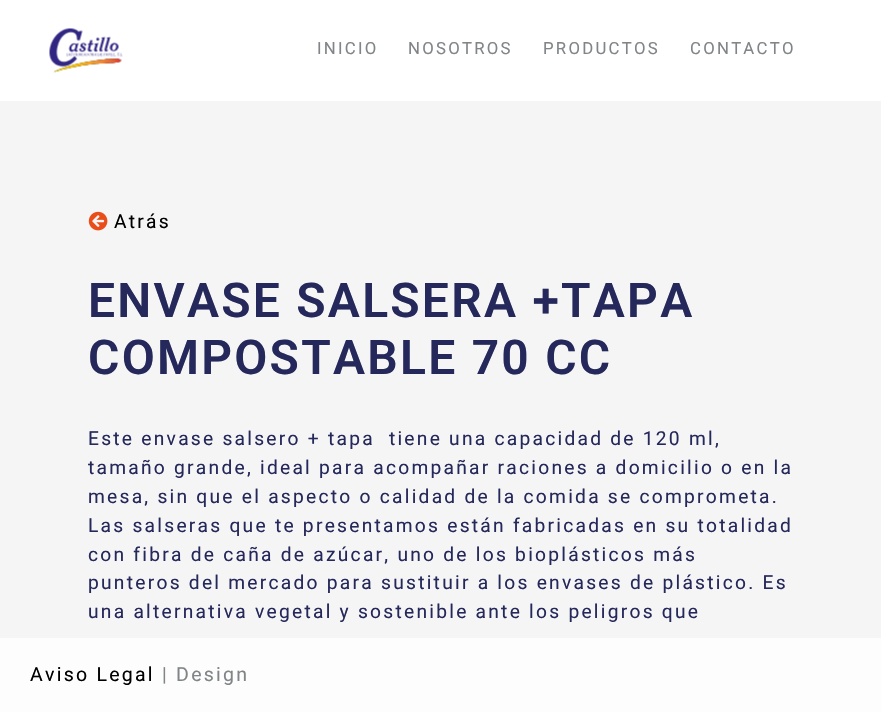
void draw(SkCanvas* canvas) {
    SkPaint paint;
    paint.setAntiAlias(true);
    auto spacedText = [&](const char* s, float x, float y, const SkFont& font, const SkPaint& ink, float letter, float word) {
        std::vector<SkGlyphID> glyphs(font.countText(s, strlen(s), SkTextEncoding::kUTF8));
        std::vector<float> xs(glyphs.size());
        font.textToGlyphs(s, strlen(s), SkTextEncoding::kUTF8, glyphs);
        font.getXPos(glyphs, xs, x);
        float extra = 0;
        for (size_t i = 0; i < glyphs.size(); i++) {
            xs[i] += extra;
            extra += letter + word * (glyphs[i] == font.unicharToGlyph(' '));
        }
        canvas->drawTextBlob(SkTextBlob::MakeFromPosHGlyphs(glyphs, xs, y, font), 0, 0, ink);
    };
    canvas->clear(0xFFF5F5F5);
    paint.setColor(0xFFFFFFFF);
    canvas->drawRect(SkRect::MakeXYWH(0, 0, 881, 101), paint);
    canvas->drawImageRect(SkImages::DeferredFromEncodedData(SkData::MakeFromFileName("img1.png")), SkRect::MakeXYWH(49, 28, 74, 45), SkSamplingOptions());
    SkFont font1(fontMgr->matchFamilyStyle("Roboto", SkFontStyle::Normal()), 16.75f);
    font1.setSubpixel(true);
    paint.setColor(0xFF818587);
    spacedText("INICIO", 317, 54, font1, paint, 2.25f, 0);
    spacedText("NOSOTROS", 408, 54, font1, paint, 2.25f, 0);
    spacedText("PRODUCTOS", 543, 54, font1, paint, 2.25f, 0);
    spacedText("CONTACTO", 690, 54, font1, paint, 2.25f, 0);
    canvas->drawImageRect(SkImages::DeferredFromEncodedData(SkData::MakeFromFileName("img2.png")), SkRect::MakeXYWH(88, 211, 20, 20), SkSamplingOptions());
    SkFont font2(fontMgr->matchFamilyStyle("Roboto", SkFontStyle::Normal()), 19.2f);
    font2.setSubpixel(true);
    paint.setColor(0xFF000000);
    spacedText("Atrás", 114, 228, font2, paint, 2.25f, 0);
    SkFont font3(fontMgr->matchFamilyStyle("Roboto", SkFontStyle(600, SkFontStyle::kNormal_Width, SkFontStyle::kUpright_Slant)), 48);
    font3.setSubpixel(true);
    paint.setColor(0xFF25285A);
    spacedText("ENVASE SALSERA +TAPA", 88, 317, font3, paint, 2.25f, 0);
    spacedText("COMPOSTABLE 70 CC", 88, 374, font3, paint, 2.25f, 0);
    spacedText("Este envase salsero + tapa  tiene una capacidad de 120 ml,", 88, 445, font2, paint, 2.25f, 0);
    spacedText("tamaño grande, ideal para acompañar raciones a domicilio o en la", 88, 474, font2, paint, 2.25f, 0);
    spacedText("mesa, sin que el aspecto o calidad de la comida se comprometa.", 88, 503, font2, paint, 2.25f, 0);
    spacedText("Las salseras que te presentamos están fabricadas en su totalidad", 88, 532, font2, paint, 2.25f, 0);
    spacedText("con fibra de caña de azúcar, uno de los bioplásticos más", 88, 561, font2, paint, 2.25f, 0);
    spacedText("punteros del mercado para sustituir a los envases de plástico. Es", 88, 589, font2, paint, 2.25f, 0);
    spacedText("una alternativa vegetal y sostenible ante los peligros que", 88, 618, font2, paint, 2.25f, 0);
    paint.setColor(0xCCFFFFFF);
    canvas->drawRect(SkRect::MakeXYWH(0, 638, 881, 74), paint);
    SkFont font4(fontMgr->matchFamilyStyle("Roboto", SkFontStyle::Normal()), 19.5f);
    font4.setSubpixel(true);
    paint.setColor(0xFF000000);
    spacedText("Aviso Legal", 30, 681, font4, paint, 2.25f, 0);
    paint.setColor(0xFF818587);
    spacedText("| Design", 162, 681, font4, paint, 2.25f, 0);
}
